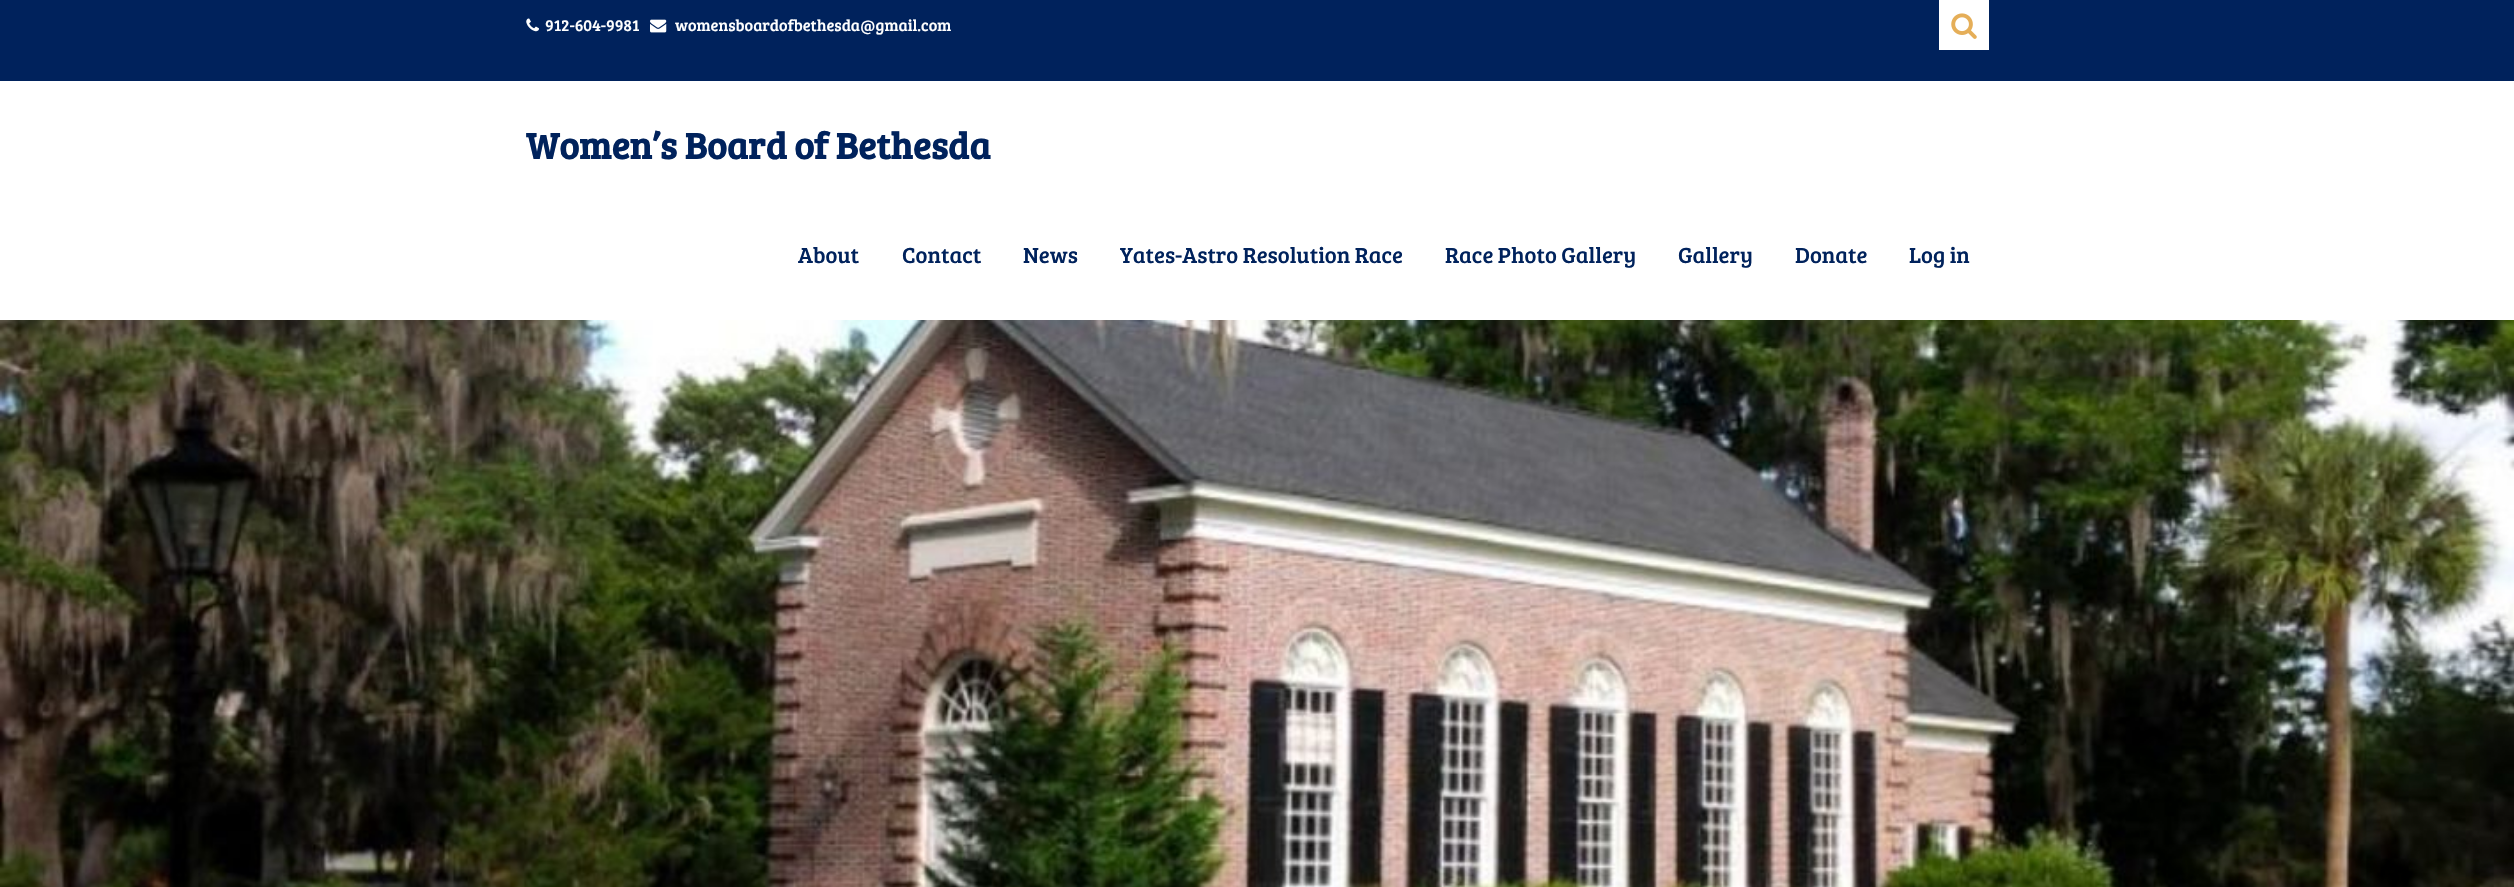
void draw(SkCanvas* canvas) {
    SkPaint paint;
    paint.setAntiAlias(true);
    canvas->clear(0xFFFFFFFF);
    paint.setColor(0xFF00225C);
    canvas->drawRect(SkRect::MakeXYWH(0, 0, 2514, 81), paint);
    canvas->drawImageRect(SkImages::DeferredFromEncodedData(SkData::MakeFromFileName("img1.png")), SkRect::MakeXYWH(526, 18, 13, 14), SkSamplingOptions());
    SkFont font1(fontMgr->matchFamilyStyle("Bree Serif", SkFontStyle::Normal()), 16.25f);
    font1.setSubpixel(true);
    paint.setColor(0xFFFFFFFF);
    canvas->drawString("912-604-9981", 545, 31, font1, paint);
    canvas->drawImageRect(SkImages::DeferredFromEncodedData(SkData::MakeFromFileName("img2.png")), SkRect::MakeXYWH(650, 19, 17, 14), SkSamplingOptions());
    canvas->drawString("womensboardofbethesda@gmail.com", 675, 31, font1, paint);
    canvas->drawRect(SkRect::MakeXYWH(1939, 0, 50, 50), paint);
    canvas->drawImageRect(SkImages::DeferredFromEncodedData(SkData::MakeFromFileName("img3.png")), SkRect::MakeXYWH(1951, 13, 26, 26), SkSamplingOptions());
    SkFont font2(fontMgr->matchFamilyStyle("Bree Serif", SkFontStyle::Bold()), 37.5f);
    font2.setSubpixel(true);
    paint.setColor(0xFF00225C);
    canvas->drawString("Women’s Board of Bethesda", 526, 159, font2, paint);
    SkFont font3(fontMgr->matchFamilyStyle("Bree Serif", SkFontStyle::Normal()), 22.5f);
    font3.setSubpixel(true);
    canvas->drawString("About", 798, 263, font3, paint);
    canvas->drawString("Contact", 902, 263, font3, paint);
    canvas->drawString("News", 1023, 263, font3, paint);
    canvas->drawString("Yates-Astro Resolution Race", 1120, 263, font3, paint);
    canvas->drawString("Race Photo Gallery", 1445, 263, font3, paint);
    canvas->drawString("Gallery", 1678, 263, font3, paint);
    canvas->drawString("Donate", 1795, 263, font3, paint);
    canvas->drawString("Log in", 1909, 263, font3, paint);
    canvas->drawImageRect(SkImages::DeferredFromEncodedData(SkData::MakeFromFileName("img4.png")), SkRect::MakeXYWH(0, 320, 2514, 567), SkSamplingOptions());
}
